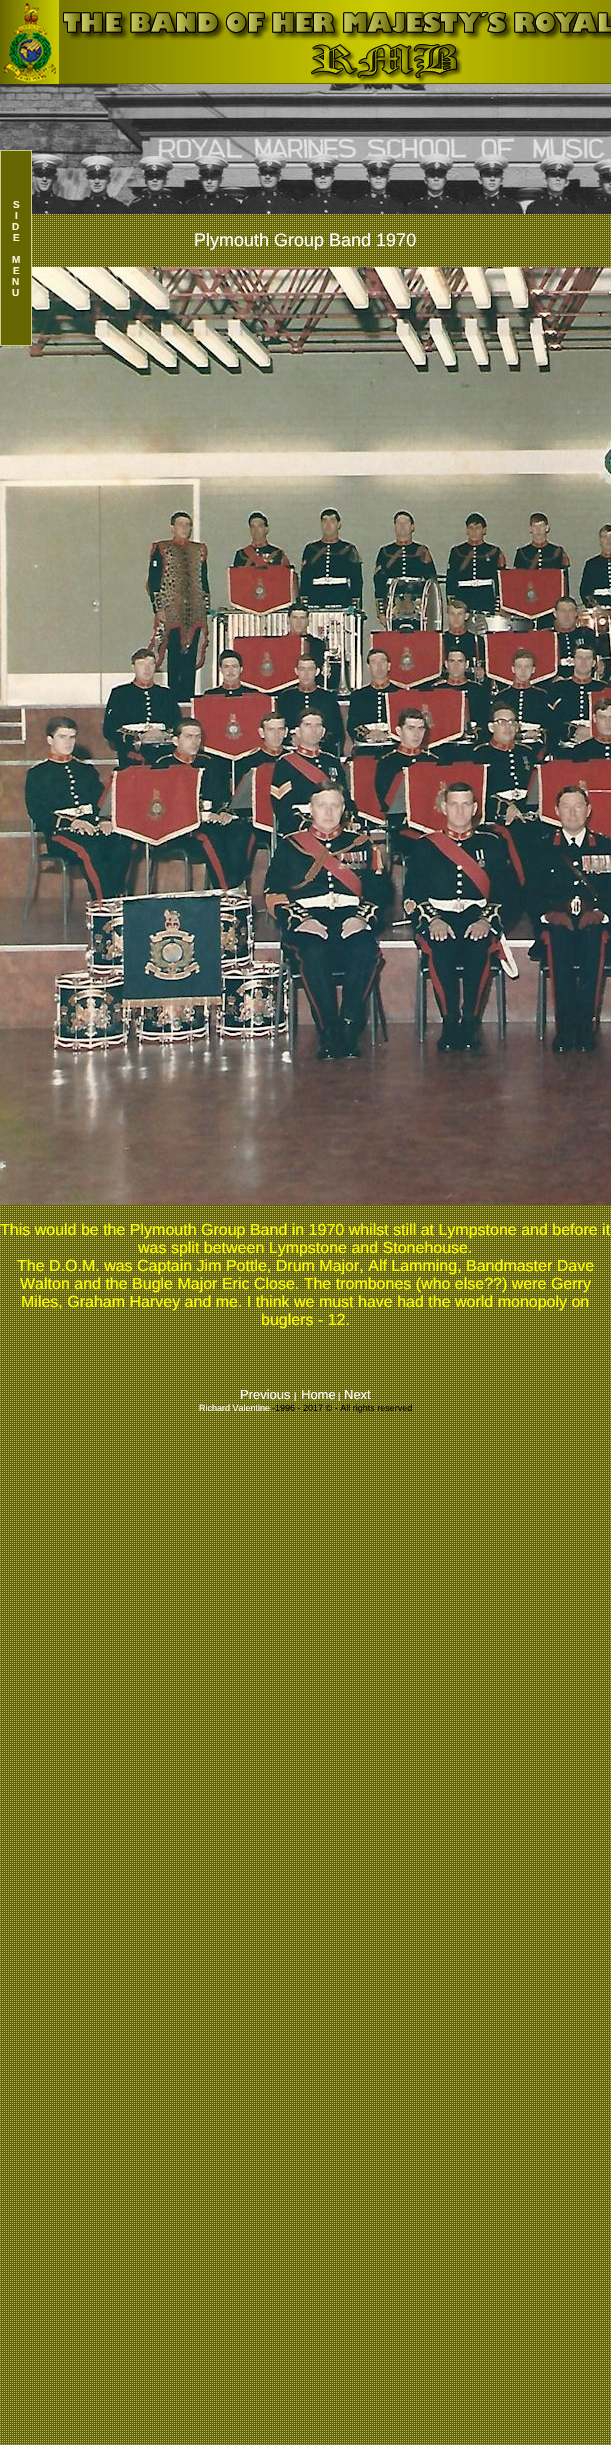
void draw(SkCanvas* canvas) {
    SkPaint paint;
    paint.setAntiAlias(true);
    canvas->clear(0xFFFFFFFF);
    canvas->drawImageRect(SkImages::DeferredFromEncodedData(SkData::MakeFromFileName("img1.png")), SkRect::MakeXYWH(0, 214, 611, 2231), SkSamplingOptions());
    canvas->drawImageRect(SkImages::DeferredFromEncodedData(SkData::MakeFromFileName("img3.png")), SkRect::MakeXYWH(0, 84, 611, 130), SkSamplingOptions());
    canvas->drawImageRect(SkImages::DeferredFromEncodedData(SkData::MakeFromFileName("img4.png")), SkRect::MakeXYWH(0, 267, 611, 938), SkSamplingOptions());
    paint.setColor(0xFFCCCC99);
    canvas->drawRect(SkRect::MakeXYWH(0, 150, 32, 196), paint);
    paint.setColor(0xFF666600);
    canvas->drawRect(SkRect::MakeXYWH(1, 151, 30, 194), paint);
    SkFont font1(fontMgr->matchFamilyStyle("Liberation Sans", SkFontStyle::Bold()), 10);
    font1.setSubpixel(true);
    paint.setColor(0xFFF5F5DC);
    canvas->drawString("S", 13, 208, font1, paint);
    canvas->drawString("I", 15, 219, font1, paint);
    canvas->drawString("D", 12, 230, font1, paint);
    canvas->drawString("E", 13, 241, font1, paint);
    canvas->drawString("M", 12, 263, font1, paint);
    canvas->drawString("E", 13, 274, font1, paint);
    canvas->drawString("N", 12, 285, font1, paint);
    canvas->drawString("U", 12, 296, font1, paint);
    canvas->drawImageRect(SkImages::DeferredFromEncodedData(SkData::MakeFromFileName("img2.png")), SkRect::MakeXYWH(0, 0, 611, 84), SkSamplingOptions());
    SkFont font2(fontMgr->matchFamilyStyle("Liberation Sans", SkFontStyle::Normal()), 18);
    font2.setSubpixel(true);
    paint.setColor(0xFFFFFFFF);
    canvas->drawString("Plymouth Group Band 1970", 194, 246, font2, paint);
    SkFont font3(fontMgr->matchFamilyStyle("Liberation Sans", SkFontStyle::Normal()), 16);
    font3.setSubpixel(true);
    paint.setColor(0xFFFFFF00);
    canvas->drawString("This would be the Plymouth Group Band in 1970 whilst still at Lympstone and before it", 0, 1235, font3, paint);
    canvas->drawString("was split between Lympstone and Stonehouse.", 138, 1253, font3, paint);
    canvas->drawString("The D.O.M. was Captain Jim Pottle, Drum Major, Alf Lamming, Bandmaster Dave", 17, 1271, font3, paint);
    canvas->drawString("Walton and the Bugle Major Eric Close. The trombones (who else?\077) were Gerry", 20, 1289, font3, paint);
    canvas->drawString("Miles, Graham Harvey and me. I think we must have had the world monopoly on", 21, 1307, font3, paint);
    canvas->drawString("buglers - 12.", 261, 1325, font3, paint);
    SkFont font4(fontMgr->matchFamilyStyle("Liberation Sans", SkFontStyle::Normal()), 13);
    font4.setSubpixel(true);
    paint.setColor(0xFFFFFFFF);
    canvas->drawString("Previous", 240, 1399, font4, paint);
    SkFont font5(fontMgr->matchFamilyStyle("Liberation Sans", SkFontStyle::Normal()), 9);
    font5.setSubpixel(true);
    canvas->drawString("|", 294, 1399, font5, paint);
    canvas->drawString("Home", 301, 1399, font4, paint);
    canvas->drawString("|", 338, 1399, font5, paint);
    canvas->drawString("Next", 344, 1399, font4, paint);
    canvas->drawString("Richard Valentine", 199, 1411, font5, paint);
    paint.setColor(0xFF000000);
    canvas->drawString("-1996 - 2017 © - All rights reserved", 272, 1411, font5, paint);
}
